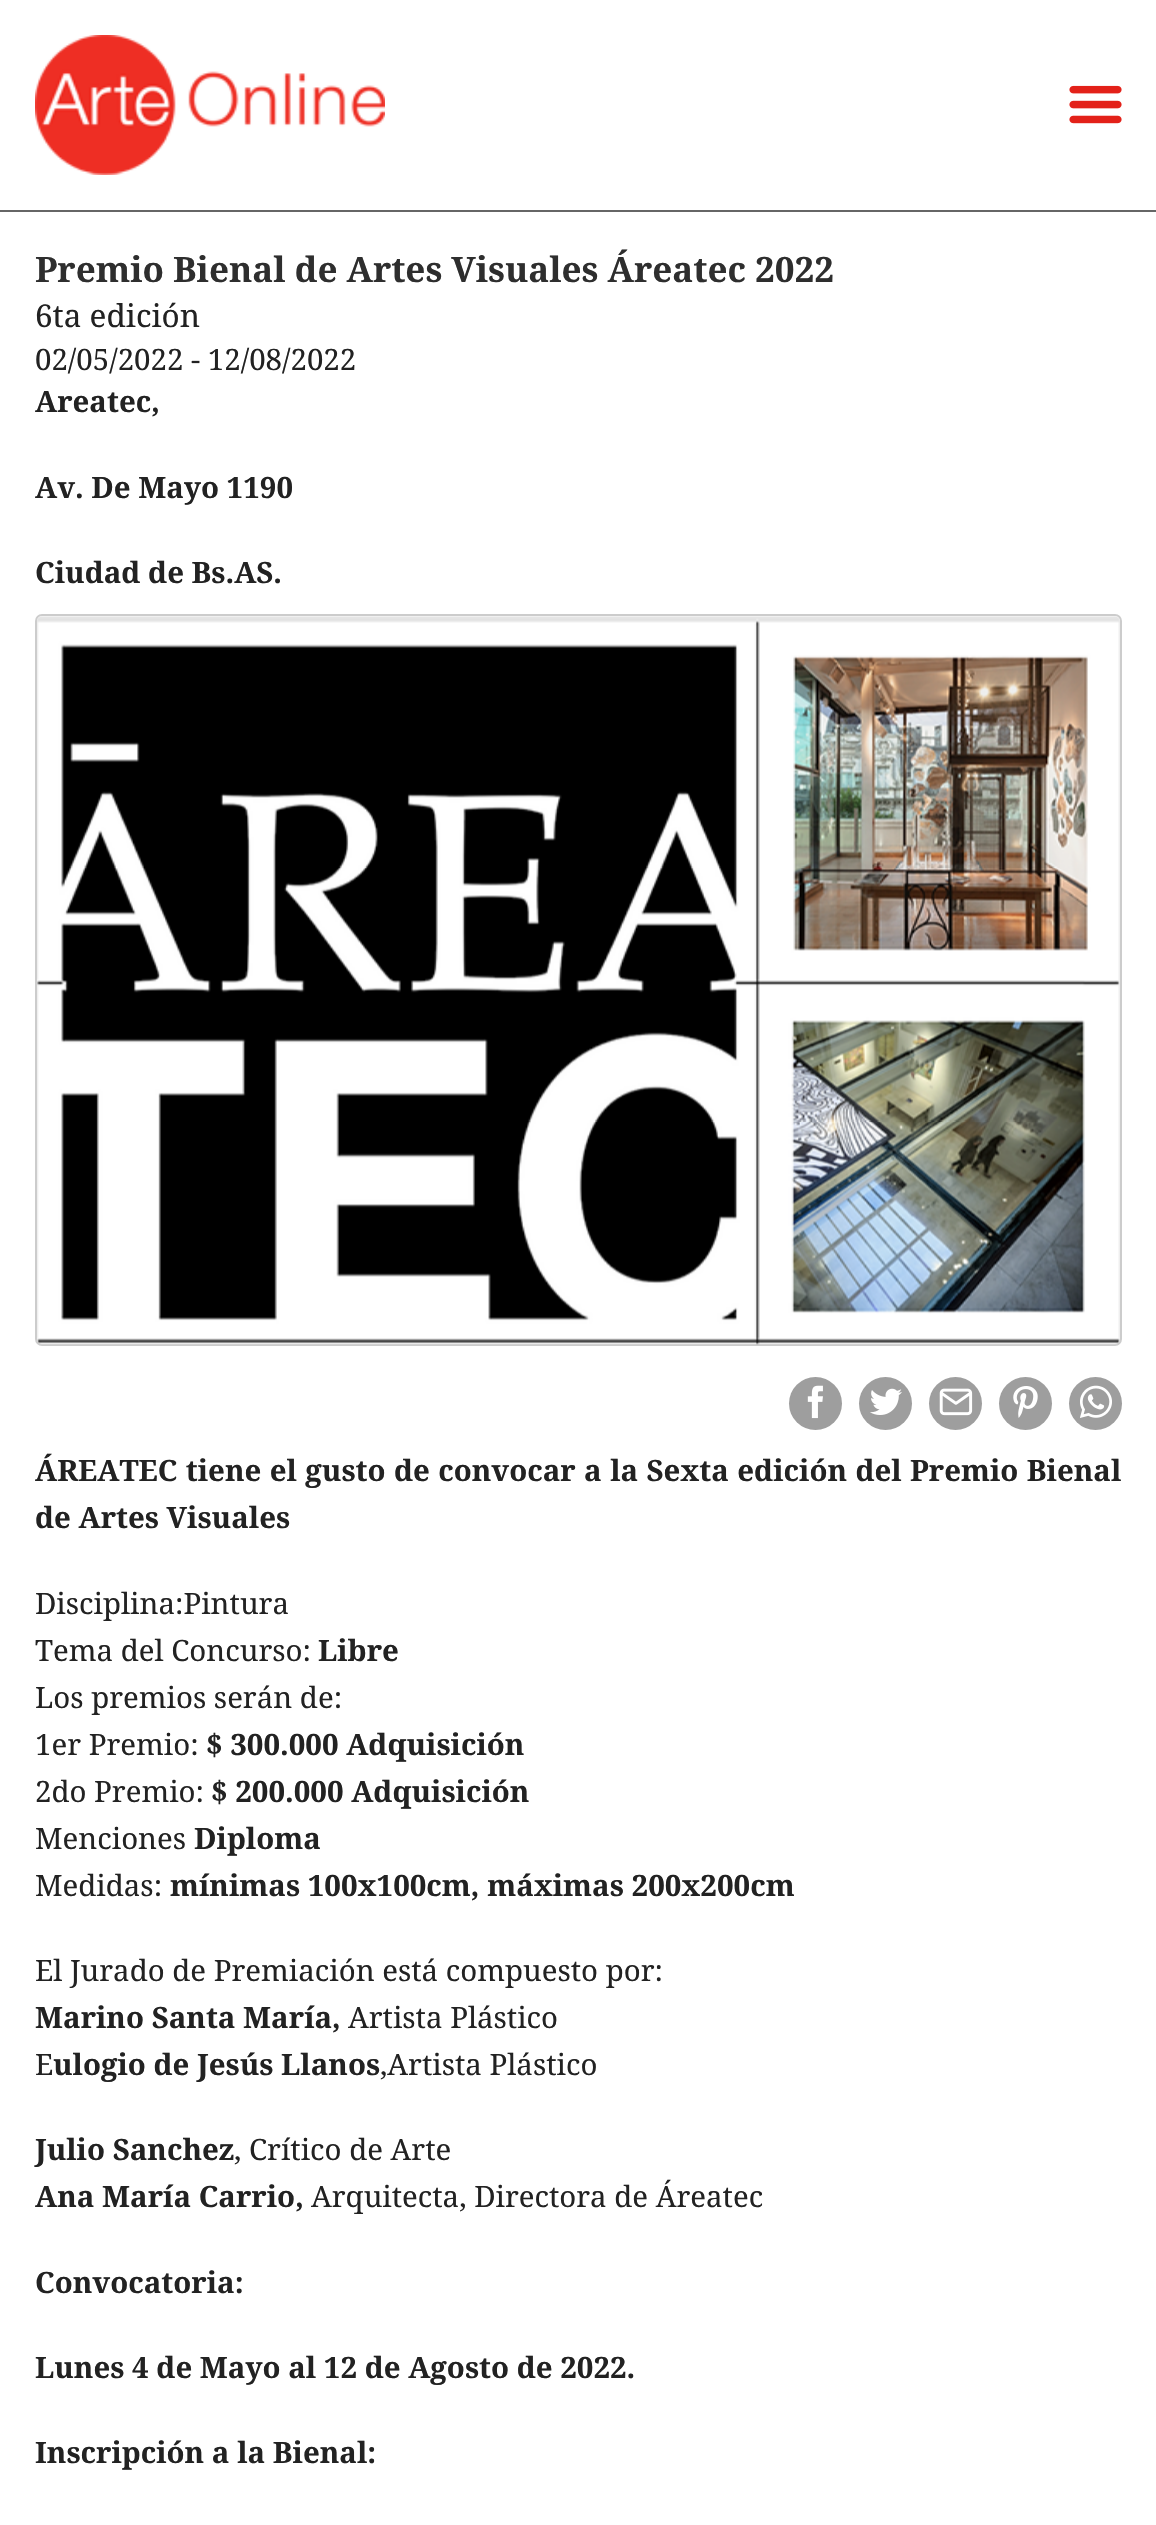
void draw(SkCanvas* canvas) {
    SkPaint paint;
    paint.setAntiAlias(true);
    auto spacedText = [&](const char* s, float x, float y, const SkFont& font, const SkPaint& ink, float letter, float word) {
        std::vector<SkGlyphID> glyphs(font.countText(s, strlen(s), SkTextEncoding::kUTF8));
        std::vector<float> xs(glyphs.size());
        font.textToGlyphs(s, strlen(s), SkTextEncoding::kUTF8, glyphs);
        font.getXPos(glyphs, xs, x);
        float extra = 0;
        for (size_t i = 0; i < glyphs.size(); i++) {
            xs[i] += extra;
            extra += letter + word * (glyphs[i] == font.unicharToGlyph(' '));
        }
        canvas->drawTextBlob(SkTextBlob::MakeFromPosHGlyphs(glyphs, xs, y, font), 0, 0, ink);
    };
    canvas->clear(0xFFFFFFFF);
    paint.setColor(0xFF666666);
    canvas->drawRect(SkRect::MakeXYWH(0, 210, 1156, 2), paint);
    canvas->drawImageRect(SkImages::DeferredFromEncodedData(SkData::MakeFromFileName("img1.png")), SkRect::MakeXYWH(35, 35, 350, 140), SkSamplingOptions());
    canvas->drawImageRect(SkImages::DeferredFromEncodedData(SkData::MakeFromFileName("img2.png")), SkRect::MakeXYWH(1069, 85, 53, 39), SkSamplingOptions());
    SkFont font1(fontMgr->matchFamilyStyle("Noto Serif", SkFontStyle::Bold()), 35);
    font1.setSubpixel(true);
    paint.setColor(0xFF2E2E2E);
    canvas->drawString("Premio Bienal de Artes Visuales Áreatec 2022", 35, 282, font1, paint);
    SkFont font2(fontMgr->matchFamilyStyle("Noto Serif", SkFontStyle::Normal()), 31.5f);
    font2.setSubpixel(true);
    paint.setColor(0xFF222222);
    canvas->drawString("6ta edición", 35, 327, font2, paint);
    SkFont font3(fontMgr->matchFamilyStyle("Noto Serif", SkFontStyle::Normal()), 29.4f);
    font3.setSubpixel(true);
    canvas->drawString("02/05/2022 - 12/08/2022", 35, 370, font3, paint);
    SkFont font4(fontMgr->matchFamilyStyle("Noto Serif", SkFontStyle::Bold()), 29.4f);
    font4.setSubpixel(true);
    canvas->drawString("Areatec,", 35, 412, font4, paint);
    canvas->drawString("Av. De Mayo 1190", 35, 498, font4, paint);
    canvas->drawString("Ciudad de Bs.AS.", 35, 583, font4, paint);
    paint.setStyle(SkPaint::kStroke_Style);
    paint.setStrokeWidth(2);
    paint.setColor(0xFFCCCCCC);
    canvas->drawRoundRect(SkRect::MakeXYWH(36, 615, 1085, 730), 6, 6, paint);
    canvas->drawImageRect(SkImages::DeferredFromEncodedData(SkData::MakeFromFileName("img3.png")), SkRect::MakeXYWH(37, 616, 1083, 729), SkSamplingOptions());
    paint.setStyle(SkPaint::kFill_Style);
    paint.setColor(0xFF9E9E9E);
    canvas->drawCircle(815.5f, 1403.5f, 26.5f, paint);
    canvas->drawImageRect(SkImages::DeferredFromEncodedData(SkData::MakeFromFileName("img4.png")), SkRect::MakeXYWH(807, 1385, 16, 34), SkSamplingOptions());
    canvas->drawCircle(885.5f, 1403.5f, 26.5f, paint);
    canvas->drawImageRect(SkImages::DeferredFromEncodedData(SkData::MakeFromFileName("img5.png")), SkRect::MakeXYWH(870, 1388, 32, 27), SkSamplingOptions());
    canvas->drawCircle(955.5f, 1403.5f, 26.5f, paint);
    canvas->drawImageRect(SkImages::DeferredFromEncodedData(SkData::MakeFromFileName("img6.png")), SkRect::MakeXYWH(939, 1388, 34, 28), SkSamplingOptions());
    canvas->drawCircle(1025.5f, 1403.5f, 26.5f, paint);
    canvas->drawImageRect(SkImages::DeferredFromEncodedData(SkData::MakeFromFileName("img7.png")), SkRect::MakeXYWH(1013, 1386, 25, 32), SkSamplingOptions());
    canvas->drawCircle(1095.5f, 1403.5f, 26.5f, paint);
    canvas->drawImageRect(SkImages::DeferredFromEncodedData(SkData::MakeFromFileName("img8.png")), SkRect::MakeXYWH(1080, 1385, 32, 33), SkSamplingOptions());
    paint.setColor(0xFF222222);
    spacedText("ÁREATEC tiene el gusto de convocar a la Sexta edición del Premio Bienal", 35, 1481, font4, paint, 0, 0.75f);
    canvas->drawString("de Artes Visuales", 35, 1528, font4, paint);
    canvas->drawString("Disciplina:Pintura", 35, 1614, font3, paint);
    canvas->drawString("Tema del Concurso:", 35, 1661, font3, paint);
    canvas->drawString("Libre", 318, 1661, font4, paint);
    canvas->drawString("Los premios serán de:", 35, 1708, font3, paint);
    canvas->drawString("1er Premio:", 35, 1755, font3, paint);
    canvas->drawString("$ 300.000 Adquisición", 206, 1755, font4, paint);
    canvas->drawString("2do Premio:", 35, 1802, font3, paint);
    canvas->drawString("$ 200.000 Adquisición", 211, 1802, font4, paint);
    canvas->drawString("Menciones", 35, 1849, font3, paint);
    canvas->drawString("Diploma", 194, 1849, font4, paint);
    canvas->drawString("Medidas:", 35, 1896, font3, paint);
    canvas->drawString("mínimas 100x100cm, máximas 200x200cm", 170, 1896, font4, paint);
    canvas->drawString("El Jurado de Premiación está compuesto por:", 35, 1981, font3, paint);
    canvas->drawString("Marino Santa María,", 35, 2028, font4, paint);
    canvas->drawString("Artista Plástico", 348, 2028, font3, paint);
    canvas->drawString("E", 35, 2075, font3, paint);
    canvas->drawString("ulogio de Jesús Llanos", 53, 2075, font4, paint);
    canvas->drawString(",Artista Plástico", 380, 2075, font3, paint);
    canvas->drawString("Julio Sanchez", 35, 2160, font4, paint);
    canvas->drawString(", Crítico de Arte", 234, 2160, font3, paint);
    canvas->drawString("Ana María Carrio,", 35, 2207, font4, paint);
    canvas->drawString("Arquitecta, Directora de Áreatec", 311, 2207, font3, paint);
    canvas->drawString("Convocatoria:", 35, 2293, font4, paint);
    canvas->drawString("Lunes 4 de Mayo al 12 de Agosto de 2022.", 35, 2378, font4, paint);
    canvas->drawString("Inscripción a la Bienal:", 35, 2463, font4, paint);
}
